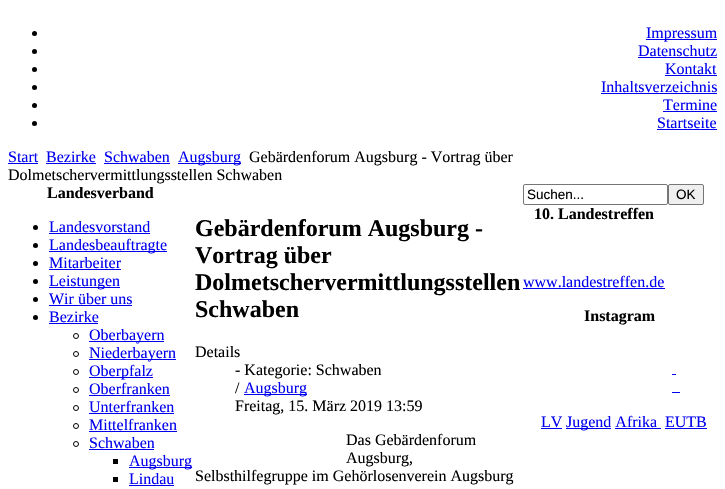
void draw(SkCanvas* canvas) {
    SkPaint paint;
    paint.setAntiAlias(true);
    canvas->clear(0xFFFFFFFF);
    paint.setColor(0xFF000000);
    canvas->drawCircle(34.5f, 33.5f, 2.5f, paint);
    paint.setColor(0xFF0000EE);
    canvas->drawRect(SkRect::MakeXYWH(646, 39, 71, 1), paint);
    SkFont font1(fontMgr->matchFamilyStyle("Liberation Serif", SkFontStyle::Normal()), 16);
    font1.setSubpixel(true);
    canvas->drawString("Impressum", 646, 38, font1, paint);
    paint.setColor(0xFF000000);
    canvas->drawCircle(34.5f, 51.5f, 2.5f, paint);
    paint.setColor(0xFF0000EE);
    canvas->drawString("Datenschutz", 638, 56, font1, paint);
    canvas->drawRect(SkRect::MakeXYWH(638, 57, 79, 1), paint);
    paint.setColor(0xFF000000);
    canvas->drawCircle(34.5f, 69.5f, 2.5f, paint);
    paint.setColor(0xFF0000EE);
    canvas->drawString("Kontakt", 665, 74, font1, paint);
    canvas->drawRect(SkRect::MakeXYWH(665, 75, 52, 1), paint);
    paint.setColor(0xFF000000);
    canvas->drawCircle(34.5f, 87.5f, 2.5f, paint);
    paint.setColor(0xFF0000EE);
    canvas->drawString("Inhaltsverzeichnis", 601, 92, font1, paint);
    canvas->drawRect(SkRect::MakeXYWH(601, 93, 116, 1), paint);
    paint.setColor(0xFF000000);
    canvas->drawCircle(34.5f, 105.5f, 2.5f, paint);
    paint.setColor(0xFF0000EE);
    canvas->drawString("Termine", 663, 110, font1, paint);
    canvas->drawRect(SkRect::MakeXYWH(663, 111, 54, 1), paint);
    paint.setColor(0xFF000000);
    canvas->drawCircle(34.5f, 123.5f, 2.5f, paint);
    paint.setColor(0xFF0000EE);
    canvas->drawString("Startseite", 657, 128, font1, paint);
    canvas->drawRect(SkRect::MakeXYWH(657, 129, 60, 1), paint);
    canvas->drawString("Start", 8, 162, font1, paint);
    canvas->drawRect(SkRect::MakeXYWH(8, 163, 30, 1), paint);
    canvas->drawString("Bezirke", 46, 162, font1, paint);
    canvas->drawRect(SkRect::MakeXYWH(46, 163, 50, 1), paint);
    canvas->drawString("Schwaben", 104, 162, font1, paint);
    canvas->drawRect(SkRect::MakeXYWH(104, 163, 66, 1), paint);
    canvas->drawRect(SkRect::MakeXYWH(178, 163, 63, 1), paint);
    canvas->drawString("Augsburg", 178, 162, font1, paint);
    paint.setColor(0xFF000000);
    canvas->drawString("Gebärdenforum Augsburg - Vortrag über", 249, 162, font1, paint);
    canvas->drawString("Dolmetschervermittlungsstellen Schwaben", 8, 180, font1, paint);
    SkFont font2(fontMgr->matchFamilyStyle("Liberation Serif", SkFontStyle::Bold()), 16);
    font2.setSubpixel(true);
    canvas->drawString("Landesverband", 47, 198, font2, paint);
    canvas->drawCircle(35.5f, 227.5f, 2.5f, paint);
    paint.setColor(0xFF0000EE);
    canvas->drawString("Landesvorstand", 49, 232, font1, paint);
    canvas->drawRect(SkRect::MakeXYWH(49, 233, 101, 1), paint);
    paint.setColor(0xFF000000);
    canvas->drawCircle(35.5f, 245.5f, 2.5f, paint);
    paint.setColor(0xFF0000EE);
    canvas->drawRect(SkRect::MakeXYWH(49, 251, 118, 1), paint);
    canvas->drawString("Landesbeauftragte", 49, 250, font1, paint);
    paint.setColor(0xFF000000);
    canvas->drawCircle(35.5f, 263.5f, 2.5f, paint);
    paint.setColor(0xFF0000EE);
    canvas->drawString("Mitarbeiter", 49, 268, font1, paint);
    canvas->drawRect(SkRect::MakeXYWH(49, 269, 72, 1), paint);
    paint.setColor(0xFF000000);
    canvas->drawCircle(35.5f, 281.5f, 2.5f, paint);
    paint.setColor(0xFF0000EE);
    canvas->drawRect(SkRect::MakeXYWH(49, 287, 71, 1), paint);
    canvas->drawString("Leistungen", 49, 286, font1, paint);
    paint.setColor(0xFF000000);
    canvas->drawCircle(35.5f, 299.5f, 2.5f, paint);
    paint.setColor(0xFF0000EE);
    canvas->drawString("Wir über uns", 49, 304, font1, paint);
    canvas->drawRect(SkRect::MakeXYWH(49, 305, 83, 1), paint);
    paint.setColor(0xFF000000);
    canvas->drawCircle(35.5f, 317.5f, 2.5f, paint);
    paint.setColor(0xFF0000EE);
    canvas->drawString("Bezirke", 49, 322, font1, paint);
    canvas->drawRect(SkRect::MakeXYWH(49, 323, 49, 1), paint);
    paint.setStyle(SkPaint::kStroke_Style);
    paint.setStrokeWidth(1);
    paint.setColor(0xFF000000);
    canvas->drawCircle(76, 336, 2.5f, paint);
    paint.setStyle(SkPaint::kFill_Style);
    paint.setColor(0xFF0000EE);
    canvas->drawRect(SkRect::MakeXYWH(89, 341, 75, 1), paint);
    canvas->drawString("Oberbayern", 89, 340, font1, paint);
    paint.setStyle(SkPaint::kStroke_Style);
    paint.setColor(0xFF000000);
    canvas->drawCircle(76, 354, 2.5f, paint);
    paint.setStyle(SkPaint::kFill_Style);
    paint.setColor(0xFF0000EE);
    canvas->drawRect(SkRect::MakeXYWH(89, 359, 87, 1), paint);
    canvas->drawString("Niederbayern", 89, 358, font1, paint);
    paint.setStyle(SkPaint::kStroke_Style);
    paint.setColor(0xFF000000);
    canvas->drawCircle(76, 372, 2.5f, paint);
    paint.setStyle(SkPaint::kFill_Style);
    paint.setColor(0xFF0000EE);
    canvas->drawRect(SkRect::MakeXYWH(89, 377, 64, 1), paint);
    canvas->drawString("Oberpfalz", 89, 376, font1, paint);
    paint.setStyle(SkPaint::kStroke_Style);
    paint.setColor(0xFF000000);
    canvas->drawCircle(76, 390, 2.5f, paint);
    paint.setStyle(SkPaint::kFill_Style);
    paint.setColor(0xFF0000EE);
    canvas->drawString("Oberfranken", 89, 394, font1, paint);
    canvas->drawRect(SkRect::MakeXYWH(89, 395, 81, 1), paint);
    paint.setStyle(SkPaint::kStroke_Style);
    paint.setColor(0xFF000000);
    canvas->drawCircle(76, 408, 2.5f, paint);
    paint.setStyle(SkPaint::kFill_Style);
    paint.setColor(0xFF0000EE);
    canvas->drawString("Unterfranken", 89, 412, font1, paint);
    canvas->drawRect(SkRect::MakeXYWH(89, 413, 85, 1), paint);
    paint.setStyle(SkPaint::kStroke_Style);
    paint.setColor(0xFF000000);
    canvas->drawCircle(76, 426, 2.5f, paint);
    paint.setStyle(SkPaint::kFill_Style);
    paint.setColor(0xFF0000EE);
    canvas->drawString("Mittelfranken", 89, 430, font1, paint);
    canvas->drawRect(SkRect::MakeXYWH(89, 431, 88, 1), paint);
    paint.setStyle(SkPaint::kStroke_Style);
    paint.setColor(0xFF000000);
    canvas->drawCircle(76, 444, 2.5f, paint);
    paint.setStyle(SkPaint::kFill_Style);
    paint.setColor(0xFF0000EE);
    canvas->drawString("Schwaben", 89, 448, font1, paint);
    canvas->drawRect(SkRect::MakeXYWH(89, 449, 65, 1), paint);
    paint.setColor(0xFF000000);
    canvas->drawRect(SkRect::MakeXYWH(113, 459, 5, 5), paint);
    paint.setColor(0xFF0000EE);
    canvas->drawRect(SkRect::MakeXYWH(129, 467, 63, 1), paint);
    canvas->drawString("Augsburg", 129, 466, font1, paint);
    paint.setColor(0xFF000000);
    canvas->drawRect(SkRect::MakeXYWH(113, 477, 5, 5), paint);
    paint.setColor(0xFF0000EE);
    canvas->drawString("Lindau", 129, 484, font1, paint);
    canvas->drawRect(SkRect::MakeXYWH(129, 485, 45, 1), paint);
    SkFont font3(fontMgr->matchFamilyStyle("Liberation Serif", SkFontStyle::Bold()), 24);
    font3.setSubpixel(true);
    paint.setColor(0xFF000000);
    canvas->drawString("Gebärdenforum Augsburg -", 195, 236, font3, paint);
    canvas->drawString("Vortrag über", 195, 263, font3, paint);
    canvas->drawString("Dolmetschervermittlungsstellen", 195, 290, font3, paint);
    canvas->drawString("Schwaben", 195, 317, font3, paint);
    canvas->drawString("Details", 195, 357, font1, paint);
    canvas->drawString("- Kategorie: Schwaben", 235, 375, font1, paint);
    canvas->drawString("/", 235, 393, font1, paint);
    paint.setColor(0xFF0000EE);
    canvas->drawRect(SkRect::MakeXYWH(244, 394, 63, 1), paint);
    canvas->drawString("Augsburg", 244, 393, font1, paint);
    paint.setColor(0xFF000000);
    canvas->drawString("Freitag, 15. März 2019 13:59", 235, 411, font1, paint);
    canvas->drawString("Das Gebärdenforum", 346, 445, font1, paint);
    canvas->drawString("Augsburg,", 346, 463, font1, paint);
    canvas->drawString("Selbsthilfegruppe im Gehörlosenverein Augsburg", 195, 481, font1, paint);
    paint.setStyle(SkPaint::kStroke_Style);
    paint.setColor(0xFF767676);
    canvas->drawRoundRect(SkRect::MakeXYWH(523.5f, 184.5f, 144, 20), 1.5f, 1.5f, paint);
    SkFont font4(fontMgr->matchFamilyStyle("Liberation Sans", SkFontStyle::Normal()), 13.5f);
    font4.setSubpixel(true);
    paint.setStyle(SkPaint::kFill_Style);
    paint.setColor(0xFF000000);
    canvas->drawString("Suchen...", 527, 199, font4, paint);
    paint.setColor(0xFFEFEFEF);
    canvas->drawRoundRect(SkRect::MakeXYWH(668.5f, 184.5f, 35, 20), 1.5f, 1.5f, paint);
    paint.setStyle(SkPaint::kStroke_Style);
    paint.setColor(0xFF767676);
    canvas->drawRoundRect(SkRect::MakeXYWH(668.5f, 184.5f, 35, 20), 1.5f, 1.5f, paint);
    paint.setStyle(SkPaint::kFill_Style);
    paint.setColor(0xFF000000);
    canvas->drawString("OK", 676, 199, font4, paint);
    canvas->drawString("10. Landestreffen", 534, 219, font2, paint);
    paint.setColor(0xFF0000EE);
    canvas->drawString("www.landestreffen.de", 523, 287, font1, paint);
    canvas->drawRect(SkRect::MakeXYWH(523, 288, 142, 1), paint);
    paint.setColor(0xFF000000);
    canvas->drawString("Instagram", 584, 321, font2, paint);
    paint.setColor(0xFF0000EE);
    canvas->drawRect(SkRect::MakeXYWH(672, 374, 4, 1), paint);
    canvas->drawRect(SkRect::MakeXYWH(672, 392, 8, 1), paint);
    canvas->drawString("LV", 541, 427, font1, paint);
    canvas->drawRect(SkRect::MakeXYWH(541, 428, 21, 1), paint);
    canvas->drawRect(SkRect::MakeXYWH(566, 428, 45, 1), paint);
    canvas->drawString("Jugend Afrika", 566, 427, font1, paint);
    canvas->drawString("EUTB", 665, 427, font1, paint);
    canvas->drawRect(SkRect::MakeXYWH(665, 428, 42, 1), paint);
    canvas->drawRect(SkRect::MakeXYWH(615, 428, 46, 1), paint);
}
